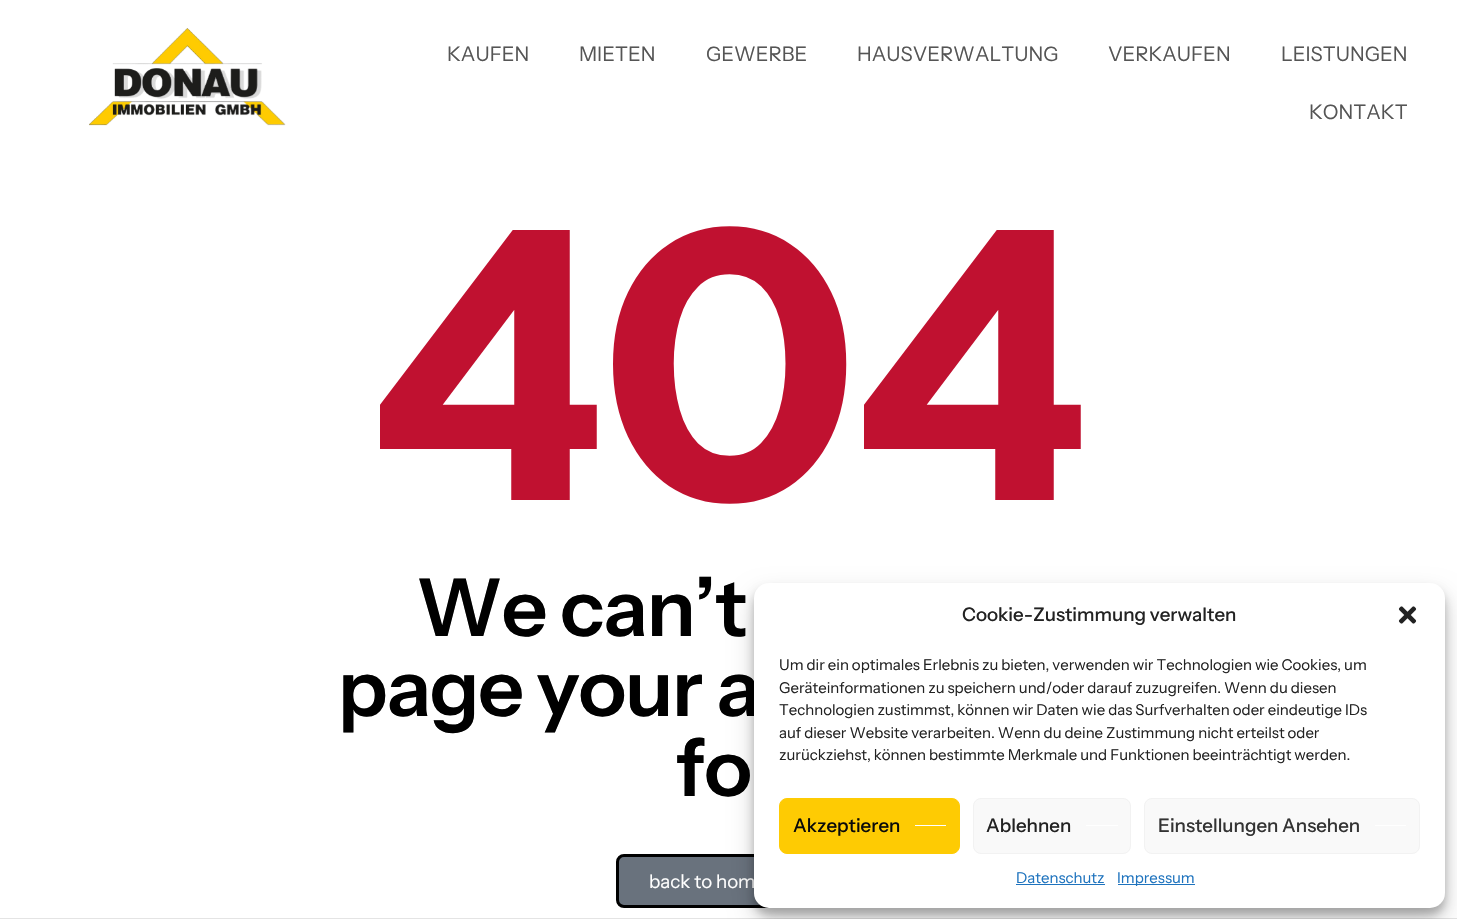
void draw(SkCanvas* canvas) {
    SkPaint paint;
    paint.setAntiAlias(true);
    auto spacedText = [&](const char* s, float x, float y, const SkFont& font, const SkPaint& ink, float letter, float word) {
        std::vector<SkGlyphID> glyphs(font.countText(s, strlen(s), SkTextEncoding::kUTF8));
        std::vector<float> xs(glyphs.size());
        font.textToGlyphs(s, strlen(s), SkTextEncoding::kUTF8, glyphs);
        font.getXPos(glyphs, xs, x);
        float extra = 0;
        for (size_t i = 0; i < glyphs.size(); i++) {
            xs[i] += extra;
            extra += letter + word * (glyphs[i] == font.unicharToGlyph(' '));
        }
        canvas->drawTextBlob(SkTextBlob::MakeFromPosHGlyphs(glyphs, xs, y, font), 0, 0, ink);
    };
    canvas->clear(0xFFFFFFFF);
    canvas->drawImageRect(SkImages::DeferredFromEncodedData(SkData::MakeFromFileName("img1.png")), SkRect::MakeXYWH(89, 28, 197, 98), SkSamplingOptions());
    SkFont font1(fontMgr->matchFamilyStyle("Instrument Sans", SkFontStyle::Normal()), 20);
    font1.setSubpixel(true);
    paint.setColor(0xFF555555);
    canvas->drawString("KAUFEN", 447, 61, font1, paint);
    canvas->drawString("MIETEN", 579, 61, font1, paint);
    canvas->drawString("GEWERBE", 706, 61, font1, paint);
    canvas->drawString("HAUSVERWALTUNG", 857, 61, font1, paint);
    canvas->drawString("VERKAUFEN", 1108, 61, font1, paint);
    canvas->drawString("LEISTUNGEN", 1281, 61, font1, paint);
    canvas->drawString("KONTAKT", 1309, 119, font1, paint);
    SkFont font2(fontMgr->matchFamilyStyle("Instrument Sans", SkFontStyle::Bold()), 375);
    font2.setSubpixel(true);
    paint.setColor(0xFFC01130);
    spacedText("404", 371, 500, font2, paint, -2.5f, 0);
    SkFont font3(fontMgr->matchFamilyStyle("Instrument Sans", SkFontStyle(600, SkFontStyle::kNormal_Width, SkFontStyle::kUpright_Slant)), 80);
    font3.setSubpixel(true);
    paint.setColor(0xFF000000);
    spacedText("We can’t", 416, 636, font3, paint, -1.25f, 0);
    spacedText("page your a", 338, 716, font3, paint, -1.25f, 0);
    spacedText("fo", 676, 796, font3, paint, -1.25f, 0);
    paint.setColor(0xFF69727D);
    canvas->drawRoundRect(SkRect::MakeXYWH(617.5f, 855.5f, 222, 51), 6.5f, 6.5f, paint);
    paint.setStyle(SkPaint::kStroke_Style);
    paint.setStrokeWidth(3);
    paint.setColor(0xFF000000);
    canvas->drawRoundRect(SkRect::MakeXYWH(617.5f, 855.5f, 222, 51), 6.5f, 6.5f, paint);
    SkFont font4(fontMgr->matchFamilyStyle("Instrument Sans", SkFontStyle::Normal()), 18.75f);
    font4.setSubpixel(true);
    paint.setStyle(SkPaint::kFill_Style);
    paint.setColor(0xFFFFFFFF);
    canvas->drawString("back to hom", 649, 888, font4, paint);
    paint.setColor(0xFFE4E4E4);
    canvas->drawRect(SkRect::MakeXYWH(0, 918, 1457, 1), paint);
    paint.setColor(0x3B000000);
    paint.setMaskFilter(SkMaskFilter::MakeBlur(kNormal_SkBlurStyle, 4));
    canvas->drawRoundRect(SkRect::MakeXYWH(754, 590, 691, 325), 15, 15, paint);
    paint.setMaskFilter(nullptr);
    paint.setColor(0x30000000);
    paint.setMaskFilter(SkMaskFilter::MakeBlur(kNormal_SkBlurStyle, 12.5f));
    canvas->drawRoundRect(SkRect::MakeXYWH(754, 595, 691, 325), 15, 15, paint);
    paint.setMaskFilter(nullptr);
    paint.setColor(0xFFFFFFFF);
    canvas->drawRoundRect(SkRect::MakeXYWH(754, 583, 691, 325), 15, 15, paint);
    SkFont font5(fontMgr->matchFamilyStyle("Instrument Sans", SkFontStyle(500, SkFontStyle::kNormal_Width, SkFontStyle::kUpright_Slant)), 18.75f);
    font5.setSubpixel(true);
    paint.setColor(0xFF222222);
    canvas->drawString("Cookie-Zustimmung verwalten", 962, 621, font5, paint);
    canvas->drawImageRect(SkImages::DeferredFromEncodedData(SkData::MakeFromFileName("img2.png")), SkRect::MakeXYWH(1398, 606, 19, 18), SkSamplingOptions());
    SkFont font6(fontMgr->matchFamilyStyle("Instrument Sans", SkFontStyle::Normal()), 15);
    font6.setSubpixel(true);
    canvas->drawString("Um dir ein optimales Erlebnis zu bieten, verwenden wir Technologien wie Cookies, um", 779, 670, font6, paint);
    canvas->drawString("Geräteinformationen zu speichern und/oder darauf zuzugreifen. Wenn du diesen", 779, 693, font6, paint);
    canvas->drawString("Technologien zustimmst, können wir Daten wie das Surfverhalten oder eindeutige IDs", 779, 715, font6, paint);
    canvas->drawString("auf dieser Website verarbeiten. Wenn du deine Zustimmung nicht erteilst oder", 779, 738, font6, paint);
    canvas->drawString("zurückziehst, können bestimmte Merkmale und Funktionen beeinträchtigt werden.", 779, 760, font6, paint);
    paint.setColor(0xFFFECB03);
    canvas->drawRoundRect(SkRect::MakeXYWH(779.5f, 798.5f, 180, 55), 7.5f, 7.5f, paint);
    paint.setStyle(SkPaint::kStroke_Style);
    paint.setStrokeWidth(1);
    canvas->drawRoundRect(SkRect::MakeXYWH(779.5f, 798.5f, 180, 55), 7.5f, 7.5f, paint);
    paint.setStyle(SkPaint::kFill_Style);
    paint.setColor(0xFF0A0A0A);
    canvas->drawString("Akzeptieren", 793, 832, font5, paint);
    paint.setColor(0xFFFFFFFF);
    canvas->drawRect(SkRect::MakeXYWH(915, 825, 31, 1), paint);
    paint.setColor(0xFFF9F9F9);
    canvas->drawRoundRect(SkRect::MakeXYWH(973.5f, 798.5f, 157, 55), 7.5f, 7.5f, paint);
    paint.setStyle(SkPaint::kStroke_Style);
    paint.setColor(0xFFF2F2F2);
    canvas->drawRoundRect(SkRect::MakeXYWH(973.5f, 798.5f, 157, 55), 7.5f, 7.5f, paint);
    paint.setStyle(SkPaint::kFill_Style);
    paint.setColor(0xFF222222);
    canvas->drawString("Ablehnen", 986, 832, font5, paint);
    paint.setColor(0xFFFFFFFF);
    canvas->drawRect(SkRect::MakeXYWH(1086, 825, 32, 1), paint);
    paint.setColor(0xFFF9F9F9);
    canvas->drawRoundRect(SkRect::MakeXYWH(1144.5f, 798.5f, 275, 55), 7.5f, 7.5f, paint);
    paint.setStyle(SkPaint::kStroke_Style);
    paint.setColor(0xFFF2F2F2);
    canvas->drawRoundRect(SkRect::MakeXYWH(1144.5f, 798.5f, 275, 55), 7.5f, 7.5f, paint);
    paint.setStyle(SkPaint::kFill_Style);
    paint.setColor(0xFF333333);
    canvas->drawString("Einstellungen Ansehen", 1158, 832, font5, paint);
    paint.setColor(0xFFFFFFFF);
    canvas->drawRect(SkRect::MakeXYWH(1375, 825, 31, 1), paint);
    paint.setColor(0xFF1E73BE);
    canvas->drawString("Datenschutz", 1016, 883, font6, paint);
    canvas->drawRect(SkRect::MakeXYWH(1016, 884, 89, 1), paint);
    canvas->drawRect(SkRect::MakeXYWH(1118, 884, 77, 1), paint);
    canvas->drawString("Impressum", 1117, 883, font6, paint);
}
